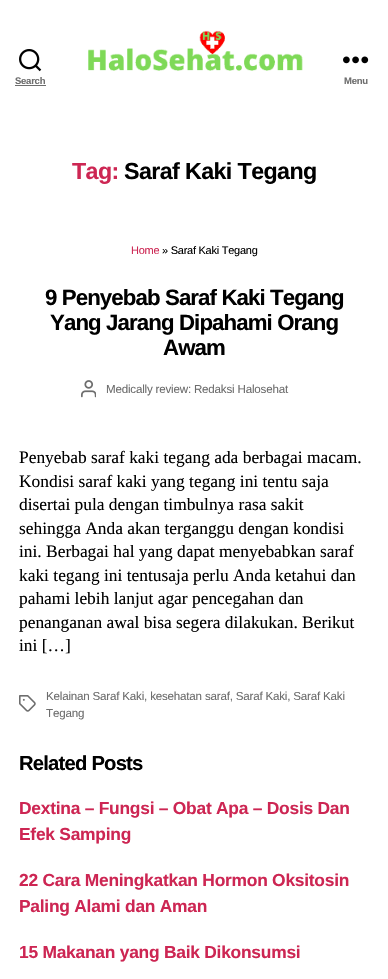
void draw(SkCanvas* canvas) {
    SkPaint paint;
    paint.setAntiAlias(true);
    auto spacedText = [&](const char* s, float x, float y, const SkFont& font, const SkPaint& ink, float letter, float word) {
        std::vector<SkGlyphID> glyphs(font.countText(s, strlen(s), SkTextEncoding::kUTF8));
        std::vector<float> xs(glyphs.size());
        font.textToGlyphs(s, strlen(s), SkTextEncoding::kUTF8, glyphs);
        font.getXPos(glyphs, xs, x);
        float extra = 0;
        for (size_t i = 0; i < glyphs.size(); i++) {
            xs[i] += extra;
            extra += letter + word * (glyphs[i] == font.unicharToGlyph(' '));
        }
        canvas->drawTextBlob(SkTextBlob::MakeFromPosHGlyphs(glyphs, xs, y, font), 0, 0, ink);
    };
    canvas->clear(0xFFFFFFFF);
    canvas->drawImageRect(SkImages::DeferredFromEncodedData(SkData::MakeFromFileName("img1.png")), SkRect::MakeXYWH(88, 30, 215, 41), SkSamplingOptions());
    canvas->drawImageRect(SkImages::DeferredFromEncodedData(SkData::MakeFromFileName("img2.png")), SkRect::MakeXYWH(19, 49, 23, 23), SkSamplingOptions());
    SkFont font1(fontMgr->matchFamilyStyle("Liberation Sans", SkFontStyle::Bold()), 9.5f);
    font1.setSubpixel(true);
    paint.setColor(0xFF6D6D6D);
    spacedText("Search", 15, 84, font1, paint, -0.25f, 0);
    canvas->drawRect(SkRect::MakeXYWH(15, 85, 31, 1), paint);
    canvas->drawImageRect(SkImages::DeferredFromEncodedData(SkData::MakeFromFileName("img3.png")), SkRect::MakeXYWH(343, 56, 26, 8), SkSamplingOptions());
    spacedText("Menu", 344, 84, font1, paint, -0.25f, 0);
    SkFont font2(fontMgr->matchFamilyStyle("Liberation Sans", SkFontStyle::Bold()), 23.25f);
    font2.setSubpixel(true);
    paint.setColor(0xFFCD2653);
    spacedText("Tag:", 72, 179, font2, paint, -0.6f, 0);
    paint.setColor(0xFF000000);
    spacedText("Saraf Kaki Tegang", 124, 179, font2, paint, -0.6f, 0);
    SkFont font3(fontMgr->matchFamilyStyle("Liberation Sans", SkFontStyle::Normal()), 11);
    font3.setSubpixel(true);
    paint.setColor(0xFFCD2653);
    spacedText("Home", 131, 254, font3, paint, -0.25f, 0);
    paint.setColor(0xFF000000);
    spacedText("» Saraf Kaki Tegang", 162, 254, font3, paint, -0.25f, 0);
    SkFont font4(fontMgr->matchFamilyStyle("Liberation Sans", SkFontStyle::Bold()), 22.25f);
    font4.setSubpixel(true);
    spacedText("9 Penyebab Saraf Kaki Tegang", 45, 305, font4, paint, -0.9f, 0);
    spacedText("Yang Jarang Dipahami Orang", 50, 330, font4, paint, -0.9f, 0);
    spacedText("Awam", 163, 355, font4, paint, -0.9f, 0);
    canvas->drawImageRect(SkImages::DeferredFromEncodedData(SkData::MakeFromFileName("img4.png")), SkRect::MakeXYWH(81, 380, 15, 18), SkSamplingOptions());
    SkFont font5(fontMgr->matchFamilyStyle("Liberation Sans", SkFontStyle::Normal()), 11.6f);
    font5.setSubpixel(true);
    paint.setColor(0xFF6D6D6D);
    spacedText("Medically review: Redaksi Halosehat", 106, 393, font5, paint, -0.2f, 0);
    SkFont font6(fontMgr->matchFamilyStyle("Liberation Serif", SkFontStyle::Normal()), 17.4f);
    font6.setSubpixel(true);
    paint.setColor(0xFF000000);
    canvas->drawString("Penyebab saraf kaki tegang ada berbagai macam.", 19, 463, font6, paint);
    canvas->drawString("Kondisi saraf kaki yang tegang ini tentu saja", 19, 487, font6, paint);
    canvas->drawString("disertai pula dengan timbulnya rasa sakit", 19, 510, font6, paint);
    canvas->drawString("sehingga Anda akan terganggu dengan kondisi", 19, 534, font6, paint);
    canvas->drawString("ini. Berbagai hal yang dapat menyebabkan saraf", 19, 557, font6, paint);
    canvas->drawString("kaki tegang ini tentusaja perlu Anda ketahui dan", 19, 581, font6, paint);
    canvas->drawString("pahami lebih lanjut agar pencegahan dan", 19, 604, font6, paint);
    canvas->drawString("penanganan awal bisa segera dilakukan. Berikut", 19, 628, font6, paint);
    canvas->drawString("ini […]", 19, 651, font6, paint);
    canvas->drawImageRect(SkImages::DeferredFromEncodedData(SkData::MakeFromFileName("img5.png")), SkRect::MakeXYWH(19, 695, 17, 17), SkSamplingOptions());
    paint.setColor(0xFF6D6D6D);
    spacedText("Kelainan Saraf Kaki, kesehatan saraf, Saraf Kaki, Saraf Kaki", 46, 700, font5, paint, -0.2f, 0);
    spacedText("Tegang", 46, 717, font5, paint, -0.2f, 0);
    SkFont font7(fontMgr->matchFamilyStyle("Liberation Sans", SkFontStyle::Bold()), 20.25f);
    font7.setSubpixel(true);
    paint.setColor(0xFF000000);
    spacedText("Related Posts", 19, 770, font7, paint, -0.8f, 0);
    SkFont font8(fontMgr->matchFamilyStyle("Liberation Sans", SkFontStyle::Bold()), 17.4f);
    font8.setSubpixel(true);
    paint.setColor(0xFFCD2653);
    spacedText("Dextina – Fungsi – Obat Apa – Dosis Dan", 19, 814, font8, paint, -0.25f, 0);
    spacedText("Efek Samping", 19, 840, font8, paint, -0.25f, 0);
    spacedText("22 Cara Meningkatkan Hormon Oksitosin", 19, 886, font8, paint, -0.25f, 0);
    spacedText("Paling Alami dan Aman", 19, 912, font8, paint, -0.25f, 0);
    spacedText("15 Makanan yang Baik Dikonsumsi", 19, 958, font8, paint, -0.25f, 0);
}
